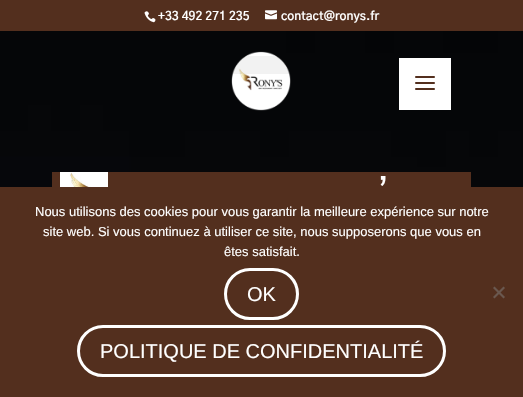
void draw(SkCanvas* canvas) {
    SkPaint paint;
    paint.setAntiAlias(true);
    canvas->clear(0xFFFFFFFF);
    paint.setColor(0xFF532F1E);
    canvas->drawRect(SkRect::MakeXYWH(0, 0, 523, 31), paint);
    canvas->drawImageRect(SkImages::DeferredFromEncodedData(SkData::MakeFromFileName("img1.png")), SkRect::MakeXYWH(144, 11, 12, 12), SkSamplingOptions());
    SkFont font1(fontMgr->matchFamilyStyle("Gothic A1", SkFontStyle(600, SkFontStyle::kNormal_Width, SkFontStyle::kUpright_Slant)), 12);
    font1.setSubpixel(true);
    paint.setColor(0xFFFFFFFF);
    canvas->drawString("+33 492 271 235", 158, 20, font1, paint);
    canvas->drawImageRect(SkImages::DeferredFromEncodedData(SkData::MakeFromFileName("img2.png")), SkRect::MakeXYWH(265, 10, 12, 10), SkSamplingOptions());
    canvas->drawString("contact@ronys.fr", 281, 20, font1, paint);
    canvas->drawImageRect(SkImages::DeferredFromEncodedData(SkData::MakeFromFileName("img5.png")), SkRect::MakeXYWH(0, 31, 523, 156), SkSamplingOptions());
    canvas->drawImageRect(SkImages::DeferredFromEncodedData(SkData::MakeFromFileName("img3.png")), SkRect::MakeXYWH(231, 51, 60, 60), SkSamplingOptions());
    paint.setColor(0x0D000000);
    canvas->drawRect(SkRect::MakeXYWH(232, 56, 58, 18), paint);
    paint.setColor(0xFFFFFFFF);
    canvas->drawRect(SkRect::MakeXYWH(399, 58, 52, 52), paint);
    canvas->drawImageRect(SkImages::DeferredFromEncodedData(SkData::MakeFromFileName("img4.png")), SkRect::MakeXYWH(415, 76, 20, 14), SkSamplingOptions());
    paint.setColor(0xFF532F1E);
    canvas->drawRect(SkRect::MakeXYWH(52, 172, 419, 15), paint);
    canvas->drawImageRect(SkImages::DeferredFromEncodedData(SkData::MakeFromFileName("img6.png")), SkRect::MakeXYWH(60, 172, 48, 15), SkSamplingOptions());
    SkFont font2(fontMgr->matchFamilyStyle("Gothic A1", SkFontStyle(500, SkFontStyle::kNormal_Width, SkFontStyle::kUpright_Slant)), 30);
    font2.setSubpixel(true);
    paint.setColor(0xFFFFFFFF);
    canvas->drawString("’", 378, 201, font2, paint);
    paint.setColor(0xFF532F1E);
    canvas->drawRect(SkRect::MakeXYWH(0, 187, 523, 210), paint);
    SkFont font3(fontMgr->matchFamilyStyle("Liberation Sans", SkFontStyle::Normal()), 13);
    font3.setSubpixel(true);
    paint.setColor(0xFFFFFFFF);
    canvas->drawString("Nous utilisons des cookies pour vous garantir la meilleure expérience sur notre", 35, 216, font3, paint);
    canvas->drawString("site web. Si vous continuez à utiliser ce site, nous supposerons que vous en", 43, 236, font3, paint);
    canvas->drawString("êtes satisfait.", 224, 256, font3, paint);
    paint.setStyle(SkPaint::kStroke_Style);
    paint.setStrokeWidth(3);
    canvas->drawRoundRect(SkRect::MakeXYWH(225.5f, 269.5f, 72, 49), 24.5f, 24.5f, paint);
    SkFont font4(fontMgr->matchFamilyStyle("Liberation Sans", SkFontStyle::Normal()), 20);
    font4.setSubpixel(true);
    paint.setStyle(SkPaint::kFill_Style);
    canvas->drawString("OK", 247, 301, font4, paint);
    paint.setStyle(SkPaint::kStroke_Style);
    canvas->drawRoundRect(SkRect::MakeXYWH(78.5f, 326.5f, 366, 49), 24.5f, 24.5f, paint);
    paint.setStyle(SkPaint::kFill_Style);
    canvas->drawString("POLITIQUE DE CONFIDENTIALITÉ", 100, 358, font4, paint);
    paint.setColor(0xFF6A584F);
    canvas->drawPath(SkPathBuilder().moveTo(503.5f, 286.5f).lineTo(505, 288).lineTo(494.5f, 298.5f).lineTo(493, 297).close().detach(), paint);
    canvas->drawPath(SkPathBuilder().moveTo(493, 288).lineTo(494.5f, 286.5f).lineTo(505, 297).lineTo(503.5f, 298.5f).close().detach(), paint);
}
